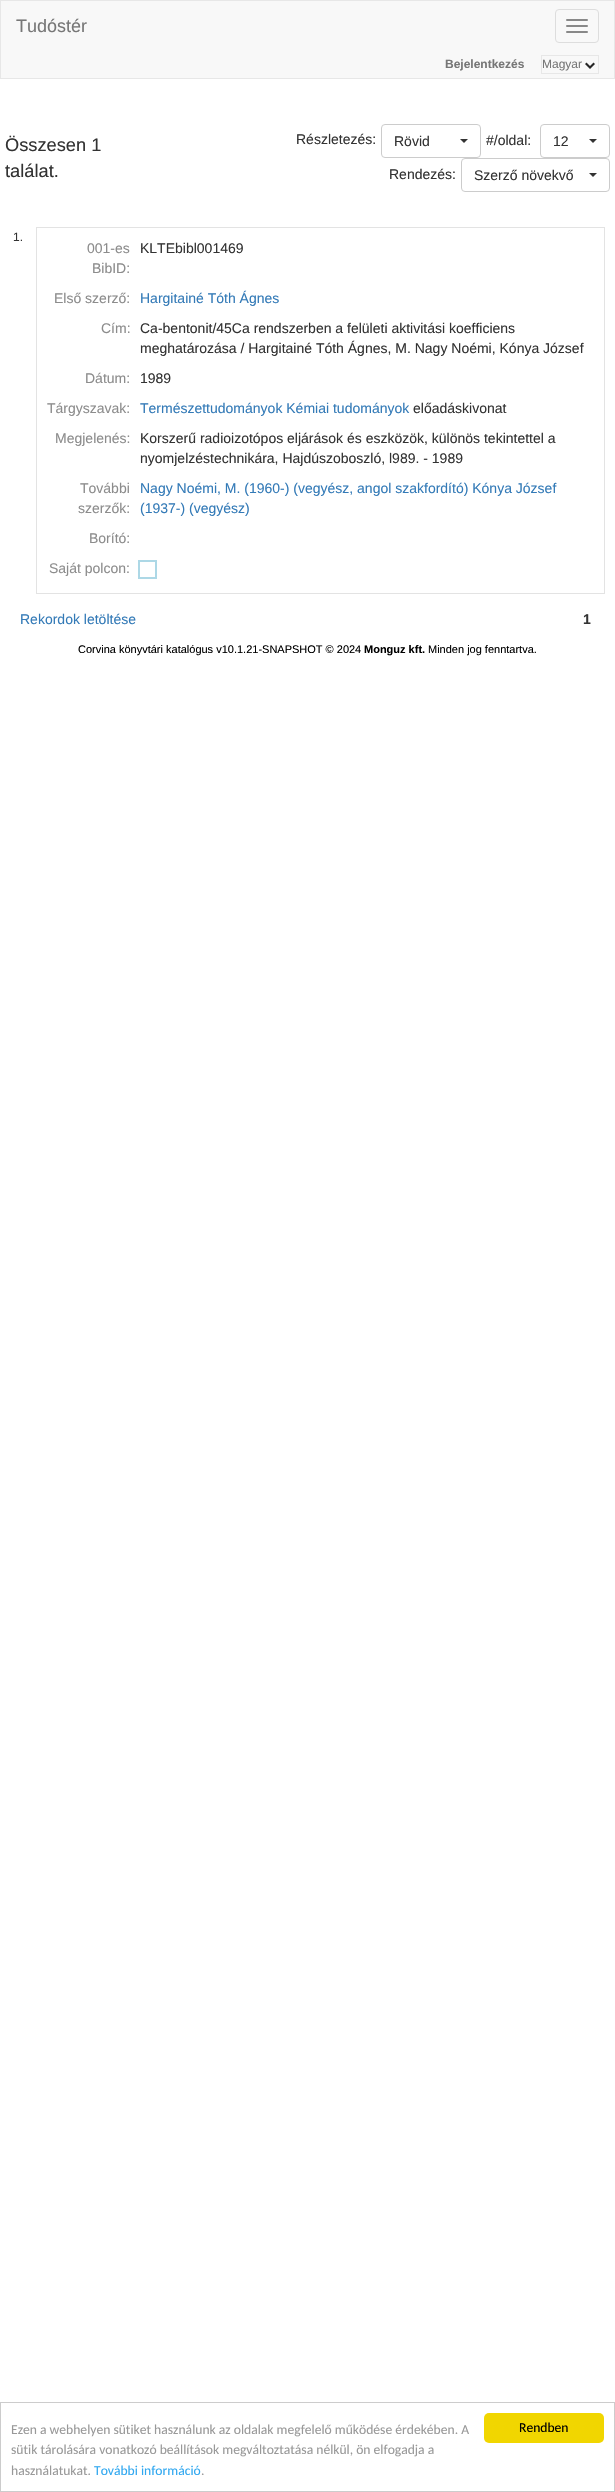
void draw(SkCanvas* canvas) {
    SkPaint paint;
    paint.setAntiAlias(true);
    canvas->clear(0xFFFFFFFF);
    paint.setColor(0xFFF8F8F8);
    canvas->drawRect(SkRect::MakeXYWH(0.5f, 0.5f, 614, 78), paint);
    paint.setStyle(SkPaint::kStroke_Style);
    paint.setStrokeWidth(1);
    paint.setColor(0xFFE7E7E7);
    canvas->drawRect(SkRect::MakeXYWH(0.5f, 0.5f, 614, 78), paint);
    SkFont font1(fontMgr->matchFamilyStyle("Liberation Sans", SkFontStyle::Normal()), 18);
    font1.setSubpixel(true);
    paint.setStyle(SkPaint::kFill_Style);
    paint.setColor(0xFF777777);
    canvas->drawString("Tudóstér", 16, 32, font1, paint);
    paint.setStyle(SkPaint::kStroke_Style);
    paint.setColor(0xFFDDDDDD);
    canvas->drawRoundRect(SkRect::MakeXYWH(555.5f, 9.5f, 43, 33), 3.5f, 3.5f, paint);
    paint.setStyle(SkPaint::kFill_Style);
    paint.setColor(0xFF888888);
    canvas->drawRoundRect(SkRect::MakeXYWH(566, 19, 22, 2), 1, 1, paint);
    canvas->drawRoundRect(SkRect::MakeXYWH(566, 25, 22, 2), 1, 1, paint);
    canvas->drawRoundRect(SkRect::MakeXYWH(566, 31, 22, 2), 1, 1, paint);
    SkFont font2(fontMgr->matchFamilyStyle("Liberation Sans", SkFontStyle::Bold()), 12);
    font2.setSubpixel(true);
    paint.setColor(0xFF777777);
    canvas->drawString("Bejelentkezés", 445, 68, font2, paint);
    canvas->drawImageRect(SkImages::DeferredFromEncodedData(SkData::MakeFromFileName("img1.png")), SkRect::MakeXYWH(585, 62, 10, 7), SkSamplingOptions());
    paint.setStyle(SkPaint::kStroke_Style);
    paint.setColor(0xFFE7E7E7);
    canvas->drawRect(SkRect::MakeXYWH(541.5f, 55.5f, 57, 18), paint);
    SkFont font3(fontMgr->matchFamilyStyle("Liberation Sans", SkFontStyle::Normal()), 12);
    font3.setSubpixel(true);
    paint.setStyle(SkPaint::kFill_Style);
    paint.setColor(0xFF777777);
    canvas->drawString("Magyar", 542, 68, font3, paint);
    SkFont font4(fontMgr->matchFamilyStyle("Liberation Sans", SkFontStyle::Normal()), 18.25f);
    font4.setSubpixel(true);
    paint.setColor(0xFF333333);
    canvas->drawString("Összesen 1", 5, 151, font4, paint);
    canvas->drawString("találat.", 5, 177, font4, paint);
    SkFont font5(fontMgr->matchFamilyStyle("Liberation Sans", SkFontStyle::Normal()), 14);
    font5.setSubpixel(true);
    canvas->drawString("Részletezés:", 296, 144, font5, paint);
    paint.setStyle(SkPaint::kStroke_Style);
    paint.setColor(0xFFCCCCCC);
    canvas->drawRoundRect(SkRect::MakeXYWH(381.5f, 124.5f, 99, 33), 3.5f, 3.5f, paint);
    paint.setStyle(SkPaint::kFill_Style);
    paint.setColor(0xFF333333);
    canvas->drawString("Rövid", 394, 146, font5, paint);
    canvas->drawPath(SkPathBuilder().moveTo(460, 139).lineTo(468, 139).lineTo(464, 143).close().detach(), paint);
    canvas->drawString("#/oldal:", 486, 145, font5, paint);
    paint.setStyle(SkPaint::kStroke_Style);
    paint.setColor(0xFFCCCCCC);
    canvas->drawRoundRect(SkRect::MakeXYWH(540.5f, 124.5f, 69, 33), 3.5f, 3.5f, paint);
    paint.setStyle(SkPaint::kFill_Style);
    paint.setColor(0xFF333333);
    canvas->drawString("12", 553, 146, font5, paint);
    canvas->drawPath(SkPathBuilder().moveTo(589, 139).lineTo(597, 139).lineTo(593, 143).close().detach(), paint);
    canvas->drawString("Rendezés:", 389, 179, font5, paint);
    paint.setStyle(SkPaint::kStroke_Style);
    paint.setColor(0xFFCCCCCC);
    canvas->drawRoundRect(SkRect::MakeXYWH(461.5f, 158.5f, 148, 33), 3.5f, 3.5f, paint);
    paint.setStyle(SkPaint::kFill_Style);
    paint.setColor(0xFF333333);
    canvas->drawString("Szerző növekvő", 474, 180, font5, paint);
    canvas->drawPath(SkPathBuilder().moveTo(589, 173).lineTo(597, 173).lineTo(593, 177).close().detach(), paint);
    canvas->drawString("1.", 13, 241, font3, paint);
    paint.setColor(0xFFE3E3E3);
    canvas->drawRect(SkRect::MakeXYWH(36, 227, 569, 1), paint);
    canvas->drawRect(SkRect::MakeXYWH(604, 227, 1, 367), paint);
    canvas->drawRect(SkRect::MakeXYWH(36, 593, 569, 1), paint);
    canvas->drawRect(SkRect::MakeXYWH(36, 227, 1, 367), paint);
    paint.setColor(0xFF8C8C8C);
    canvas->drawString("001-es", 87, 253, font5, paint);
    canvas->drawString("BibID:", 92, 273, font5, paint);
    paint.setColor(0xFF333333);
    canvas->drawString("KLTEbibl001469", 140, 253, font5, paint);
    paint.setColor(0xFF8C8C8C);
    canvas->drawString("Első szerző:", 54, 303, font5, paint);
    paint.setColor(0xFF337AB7);
    canvas->drawString("Hargitainé Tóth Ágnes", 140, 303, font5, paint);
    paint.setColor(0xFF8C8C8C);
    canvas->drawString("Cím:", 101, 333, font5, paint);
    paint.setColor(0xFF333333);
    canvas->drawString("Ca-bentonit/45Ca rendszerben a felületi aktivitási koefficiens", 140, 333, font5, paint);
    canvas->drawString("meghatározása / Hargitainé Tóth Ágnes, M. Nagy Noémi, Kónya József", 140, 353, font5, paint);
    paint.setColor(0xFF8C8C8C);
    canvas->drawString("Dátum:", 85, 383, font5, paint);
    paint.setColor(0xFF333333);
    canvas->drawString("1989", 140, 383, font5, paint);
    paint.setColor(0xFF8C8C8C);
    canvas->drawString("Tárgyszavak:", 47, 413, font5, paint);
    paint.setColor(0xFF337AB7);
    canvas->drawString("Természettudományok Kémiai tudományok", 140, 413, font5, paint);
    paint.setColor(0xFF333333);
    canvas->drawString("előadáskivonat", 413, 413, font5, paint);
    paint.setColor(0xFF8C8C8C);
    canvas->drawString("Megjelenés:", 55, 443, font5, paint);
    paint.setColor(0xFF333333);
    canvas->drawString("Korszerű radioizotópos eljárások és eszközök, különös tekintettel a", 140, 443, font5, paint);
    canvas->drawString("nyomjelzéstechnikára, Hajdúszoboszló, l989. - 1989", 140, 463, font5, paint);
    paint.setColor(0xFF8C8C8C);
    canvas->drawString("További", 80, 493, font5, paint);
    canvas->drawString("szerzők:", 78, 513, font5, paint);
    paint.setColor(0xFF337AB7);
    canvas->drawString("Nagy Noémi, M. (1960-) (vegyész, angol szakfordító) Kónya József", 140, 493, font5, paint);
    canvas->drawString("(1937-) (vegyész)", 140, 513, font5, paint);
    paint.setColor(0xFF8C8C8C);
    canvas->drawString("Borító:", 89, 543, font5, paint);
    canvas->drawString("Saját polcon:", 49, 573, font5, paint);
    paint.setStyle(SkPaint::kStroke_Style);
    paint.setStrokeWidth(2);
    paint.setColor(0xFFADD8E6);
    canvas->drawRect(SkRect::MakeXYWH(139, 561, 17, 17), paint);
    paint.setStyle(SkPaint::kFill_Style);
    paint.setColor(0xFF337AB7);
    canvas->drawString("Rekordok letöltése", 20, 624, font5, paint);
    SkFont font6(fontMgr->matchFamilyStyle("Liberation Sans", SkFontStyle::Bold()), 14);
    font6.setSubpixel(true);
    paint.setColor(0xFF333333);
    canvas->drawString("1", 583, 624, font6, paint);
    SkFont font7(fontMgr->matchFamilyStyle("Liberation Sans", SkFontStyle::Normal()), 11);
    font7.setSubpixel(true);
    paint.setColor(0xFF000000);
    canvas->drawString("Corvina könyvtári katalógus v10.1.21-SNAPSHOT © 2024", 78, 653, font7, paint);
    SkFont font8(fontMgr->matchFamilyStyle("Liberation Sans", SkFontStyle::Bold()), 11);
    font8.setSubpixel(true);
    canvas->drawString("Monguz kft.", 364, 653, font8, paint);
    canvas->drawString("Minden jog fenntartva.", 428, 653, font7, paint);
    paint.setStyle(SkPaint::kStroke_Style);
    paint.setStrokeWidth(1);
    paint.setColor(0xFFCCCCCC);
    canvas->drawRect(SkRect::MakeXYWH(0.5f, 2402.5f, 614, 89), paint);
    SkFont font9(fontMgr->matchFamilyStyle("Carlito", SkFontStyle::Normal()), 13.6f);
    font9.setSubpixel(true);
    paint.setStyle(SkPaint::kFill_Style);
    paint.setColor(0xFF999999);
    canvas->drawString("Ezen a webhelyen sütiket használunk az oldalak megfelelő működése érdekében. A", 11, 2434, font9, paint);
    canvas->drawString("sütik tárolására vonatkozó beállítások megváltoztatása nélkül, ön elfogadja a", 11, 2454, font9, paint);
    canvas->drawString("használatukat.", 11, 2475, font9, paint);
    paint.setColor(0xFF31A8F0);
    canvas->drawString("További információ", 94, 2475, font9, paint);
    paint.setColor(0xFF999999);
    canvas->drawString(".", 201, 2475, font9, paint);
    paint.setColor(0xFFF1D600);
    canvas->drawRoundRect(SkRect::MakeXYWH(484, 2413, 120, 30), 5, 5, paint);
    paint.setColor(0xFF000000);
    canvas->drawString("Rendben", 519, 2432, font9, paint);
}
